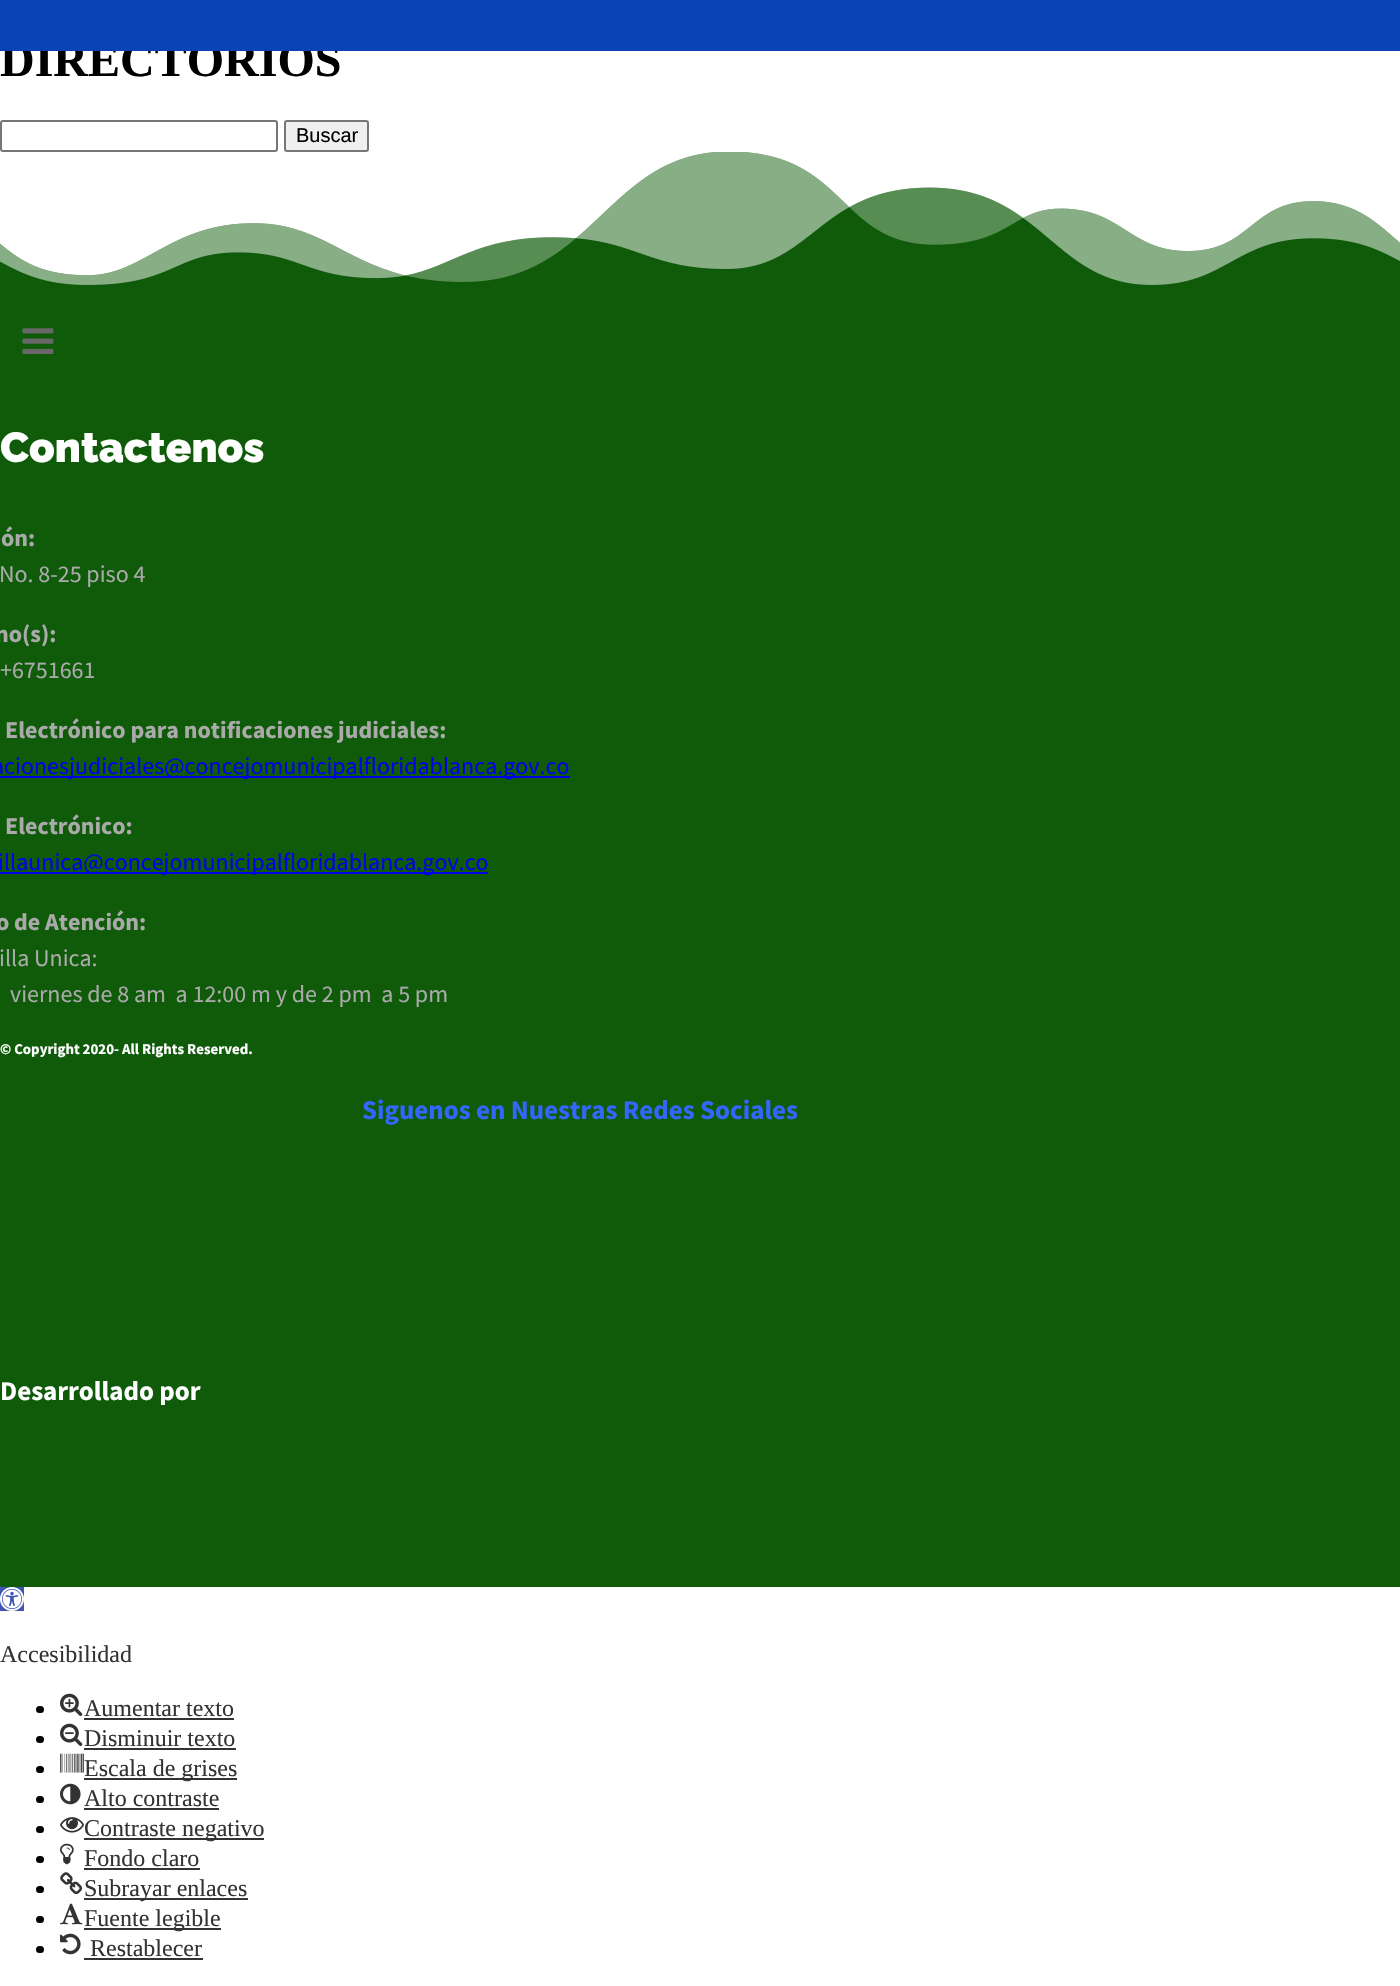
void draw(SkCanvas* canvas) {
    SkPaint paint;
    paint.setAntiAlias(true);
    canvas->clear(0xFFFFFFFF);
    SkFont font1(fontMgr->matchFamilyStyle("Liberation Serif", SkFontStyle::Bold()), 48);
    font1.setSubpixel(true);
    paint.setColor(0xFF000000);
    canvas->drawString("DIRECTORIOS", 0, 76, font1, paint);
    paint.setColor(0xFF0A43B6);
    canvas->drawRect(SkRect::MakeXYWH(0, 0, 1400, 51), paint);
    paint.setStyle(SkPaint::kStroke_Style);
    paint.setStrokeWidth(2);
    paint.setColor(0xFF767676);
    canvas->drawRoundRect(SkRect::MakeXYWH(1, 121, 276, 30), 2, 2, paint);
    paint.setStyle(SkPaint::kFill_Style);
    paint.setColor(0xFFEFEFEF);
    canvas->drawRoundRect(SkRect::MakeXYWH(285, 121, 83, 30), 2, 2, paint);
    paint.setStyle(SkPaint::kStroke_Style);
    paint.setColor(0xFF767676);
    canvas->drawRoundRect(SkRect::MakeXYWH(285, 121, 83, 30), 2, 2, paint);
    SkFont font2(fontMgr->matchFamilyStyle("Liberation Sans", SkFontStyle::Normal()), 20);
    font2.setSubpixel(true);
    paint.setStyle(SkPaint::kFill_Style);
    paint.setColor(0xFF000000);
    canvas->drawString("Buscar", 296, 142, font2, paint);
    paint.setColor(0xFF0F5B0A);
    canvas->drawRect(SkRect::MakeXYWH(0, 152, 1400, 1435), paint);
    canvas->drawImageRect(SkImages::DeferredFromEncodedData(SkData::MakeFromFileName("img1.png")), SkRect::MakeXYWH(0, 152, 1400, 133), SkSamplingOptions());
    SkFont font3(fontMgr->matchFamilyStyle("Raleway", SkFontStyle(900, SkFontStyle::kNormal_Width, SkFontStyle::kUpright_Slant)), 42);
    font3.setSubpixel(true);
    paint.setColor(0xFFFFFFFF);
    canvas->drawString("Contactenos", 0, 462, font3, paint);
    SkFont font4(fontMgr->matchFamilyStyle("Source Sans Pro", SkFontStyle::Bold()), 24);
    font4.setSubpixel(true);
    paint.setColor(0xFFAAAAAA);
    canvas->drawString("ón:", 1, 546, font4, paint);
    SkFont font5(fontMgr->matchFamilyStyle("Source Sans Pro", SkFontStyle::Normal()), 24);
    font5.setSubpixel(true);
    canvas->drawString("No. 8-25 piso 4", -1, 582, font5, paint);
    canvas->drawString("no(s):", -5, 642, font4, paint);
    canvas->drawString("+6751661", 0, 678, font5, paint);
    canvas->drawString("Electrónico para notificaciones judiciales:", 5, 738, font4, paint);
    paint.setColor(0xFF0000EE);
    canvas->drawRect(SkRect::MakeXYWH(0, 776, 570, 2), paint);
    canvas->drawString("acionesjudiciales@concejomunicipalfloridablanca.gov.co", -8, 774, font5, paint);
    paint.setColor(0xFFAAAAAA);
    canvas->drawString("Electrónico:", 5, 834, font4, paint);
    paint.setColor(0xFF0000EE);
    canvas->drawRect(SkRect::MakeXYWH(0, 872, 488, 2), paint);
    canvas->drawString("illaunica@concejomunicipalfloridablanca.gov.co", -2, 870, font5, paint);
    paint.setColor(0xFFAAAAAA);
    canvas->drawString("o de Atención:", -4, 930, font4, paint);
    canvas->drawString("illa Unica:", -1, 966, font5, paint);
    canvas->drawString("viernes de 8 am  a 12:00 m y de 2 pm  a 5 pm", 10, 1002, font5, paint);
    SkFont font6(fontMgr->matchFamilyStyle("Source Sans Pro", SkFontStyle::Bold()), 14.9f);
    font6.setSubpixel(true);
    paint.setColor(0xFFFFFFFF);
    canvas->drawString("© Copyright 2020- All Rights Reserved.", 0, 1054, font6, paint);
    SkFont font7(fontMgr->matchFamilyStyle("Source Sans Pro", SkFontStyle::Bold()), 27);
    font7.setSubpixel(true);
    paint.setColor(0xFF3366FF);
    canvas->drawString("Siguenos en Nuestras Redes Sociales", 362, 1119, font7, paint);
    paint.setColor(0xFFFFFFFF);
    canvas->drawString("Desarrollado por", 0, 1400, font7, paint);
    canvas->drawImageRect(SkImages::DeferredFromEncodedData(SkData::MakeFromFileName("img2.png")), SkRect::MakeXYWH(22, 328, 32, 26), SkSamplingOptions());
    paint.setColor(0xFF4054B2);
    canvas->drawRect(SkRect::MakeXYWH(0, 1586, 1, 2), paint);
    canvas->drawRect(SkRect::MakeXYWH(0, 1587, 24, 24), paint);
    canvas->drawImageRect(SkImages::DeferredFromEncodedData(SkData::MakeFromFileName("img3.png")), SkRect::MakeXYWH(0, 1587, 24, 24), SkSamplingOptions());
    SkFont font8(fontMgr->matchFamilyStyle("Liberation Serif", SkFontStyle::Normal()), 24);
    font8.setSubpixel(true);
    paint.setColor(0xFF333333);
    canvas->drawString("Accesibilidad", 0, 1662, font8, paint);
    paint.setColor(0xFF000000);
    canvas->drawRoundRect(SkRect::MakeXYWH(36, 1706, 8, 7), 3.5f, 3.5f, paint);
    canvas->drawImageRect(SkImages::DeferredFromEncodedData(SkData::MakeFromFileName("img4.png")), SkRect::MakeXYWH(60, 1693, 23, 23), SkSamplingOptions());
    paint.setColor(0xFF333333);
    canvas->drawString("Aumentar texto", 84, 1716, font8, paint);
    canvas->drawRect(SkRect::MakeXYWH(84, 1718, 150, 2), paint);
    paint.setColor(0xFF000000);
    canvas->drawRoundRect(SkRect::MakeXYWH(36, 1736, 8, 7), 3.5f, 3.5f, paint);
    canvas->drawImageRect(SkImages::DeferredFromEncodedData(SkData::MakeFromFileName("img5.png")), SkRect::MakeXYWH(60, 1723, 23, 23), SkSamplingOptions());
    paint.setColor(0xFF333333);
    canvas->drawString("Disminuir texto", 84, 1746, font8, paint);
    canvas->drawRect(SkRect::MakeXYWH(84, 1748, 152, 2), paint);
    paint.setColor(0xFF000000);
    canvas->drawRoundRect(SkRect::MakeXYWH(36, 1766, 8, 7), 3.5f, 3.5f, paint);
    canvas->drawImageRect(SkImages::DeferredFromEncodedData(SkData::MakeFromFileName("img6.png")), SkRect::MakeXYWH(60, 1753, 24, 20), SkSamplingOptions());
    paint.setColor(0xFF333333);
    canvas->drawRect(SkRect::MakeXYWH(84, 1778, 153, 2), paint);
    canvas->drawString("Escala de grises", 84, 1776, font8, paint);
    paint.setColor(0xFF000000);
    canvas->drawRoundRect(SkRect::MakeXYWH(36, 1796, 8, 7), 3.5f, 3.5f, paint);
    canvas->drawImageRect(SkImages::DeferredFromEncodedData(SkData::MakeFromFileName("img7.png")), SkRect::MakeXYWH(60, 1783, 21, 22), SkSamplingOptions());
    paint.setColor(0xFF333333);
    canvas->drawString("Alto contraste", 84, 1806, font8, paint);
    canvas->drawRect(SkRect::MakeXYWH(84, 1808, 135, 2), paint);
    paint.setColor(0xFF000000);
    canvas->drawRoundRect(SkRect::MakeXYWH(36, 1826, 8, 7), 3.5f, 3.5f, paint);
    canvas->drawImageRect(SkImages::DeferredFromEncodedData(SkData::MakeFromFileName("img8.png")), SkRect::MakeXYWH(60, 1817, 24, 16), SkSamplingOptions());
    paint.setColor(0xFF333333);
    canvas->drawRect(SkRect::MakeXYWH(84, 1838, 180, 2), paint);
    canvas->drawString("Contraste negativo", 84, 1836, font8, paint);
    paint.setColor(0xFF000000);
    canvas->drawRoundRect(SkRect::MakeXYWH(36, 1856, 8, 7), 3.5f, 3.5f, paint);
    canvas->drawImageRect(SkImages::DeferredFromEncodedData(SkData::MakeFromFileName("img9.png")), SkRect::MakeXYWH(60, 1843, 14, 22), SkSamplingOptions());
    paint.setColor(0xFF333333);
    canvas->drawString("Fondo claro", 84, 1866, font8, paint);
    canvas->drawRect(SkRect::MakeXYWH(84, 1868, 116, 2), paint);
    paint.setColor(0xFF000000);
    canvas->drawRoundRect(SkRect::MakeXYWH(36, 1886, 8, 7), 3.5f, 3.5f, paint);
    canvas->drawImageRect(SkImages::DeferredFromEncodedData(SkData::MakeFromFileName("img10.png")), SkRect::MakeXYWH(60, 1872, 23, 23), SkSamplingOptions());
    paint.setColor(0xFF333333);
    canvas->drawRect(SkRect::MakeXYWH(84, 1898, 164, 2), paint);
    canvas->drawString("Subrayar enlaces", 84, 1896, font8, paint);
    paint.setColor(0xFF000000);
    canvas->drawRoundRect(SkRect::MakeXYWH(36, 1916, 8, 7), 3.5f, 3.5f, paint);
    canvas->drawImageRect(SkImages::DeferredFromEncodedData(SkData::MakeFromFileName("img11.png")), SkRect::MakeXYWH(60, 1903, 23, 22), SkSamplingOptions());
    paint.setColor(0xFF333333);
    canvas->drawRect(SkRect::MakeXYWH(84, 1928, 137, 2), paint);
    canvas->drawString("Fuente legible", 84, 1926, font8, paint);
    paint.setColor(0xFF000000);
    canvas->drawRoundRect(SkRect::MakeXYWH(36, 1946, 8, 7), 3.5f, 3.5f, paint);
    canvas->drawImageRect(SkImages::DeferredFromEncodedData(SkData::MakeFromFileName("img12.png")), SkRect::MakeXYWH(60, 1933, 21, 22), SkSamplingOptions());
    paint.setColor(0xFF333333);
    canvas->drawString("Restablecer", 90, 1956, font8, paint);
    canvas->drawRect(SkRect::MakeXYWH(84, 1958, 119, 2), paint);
}
